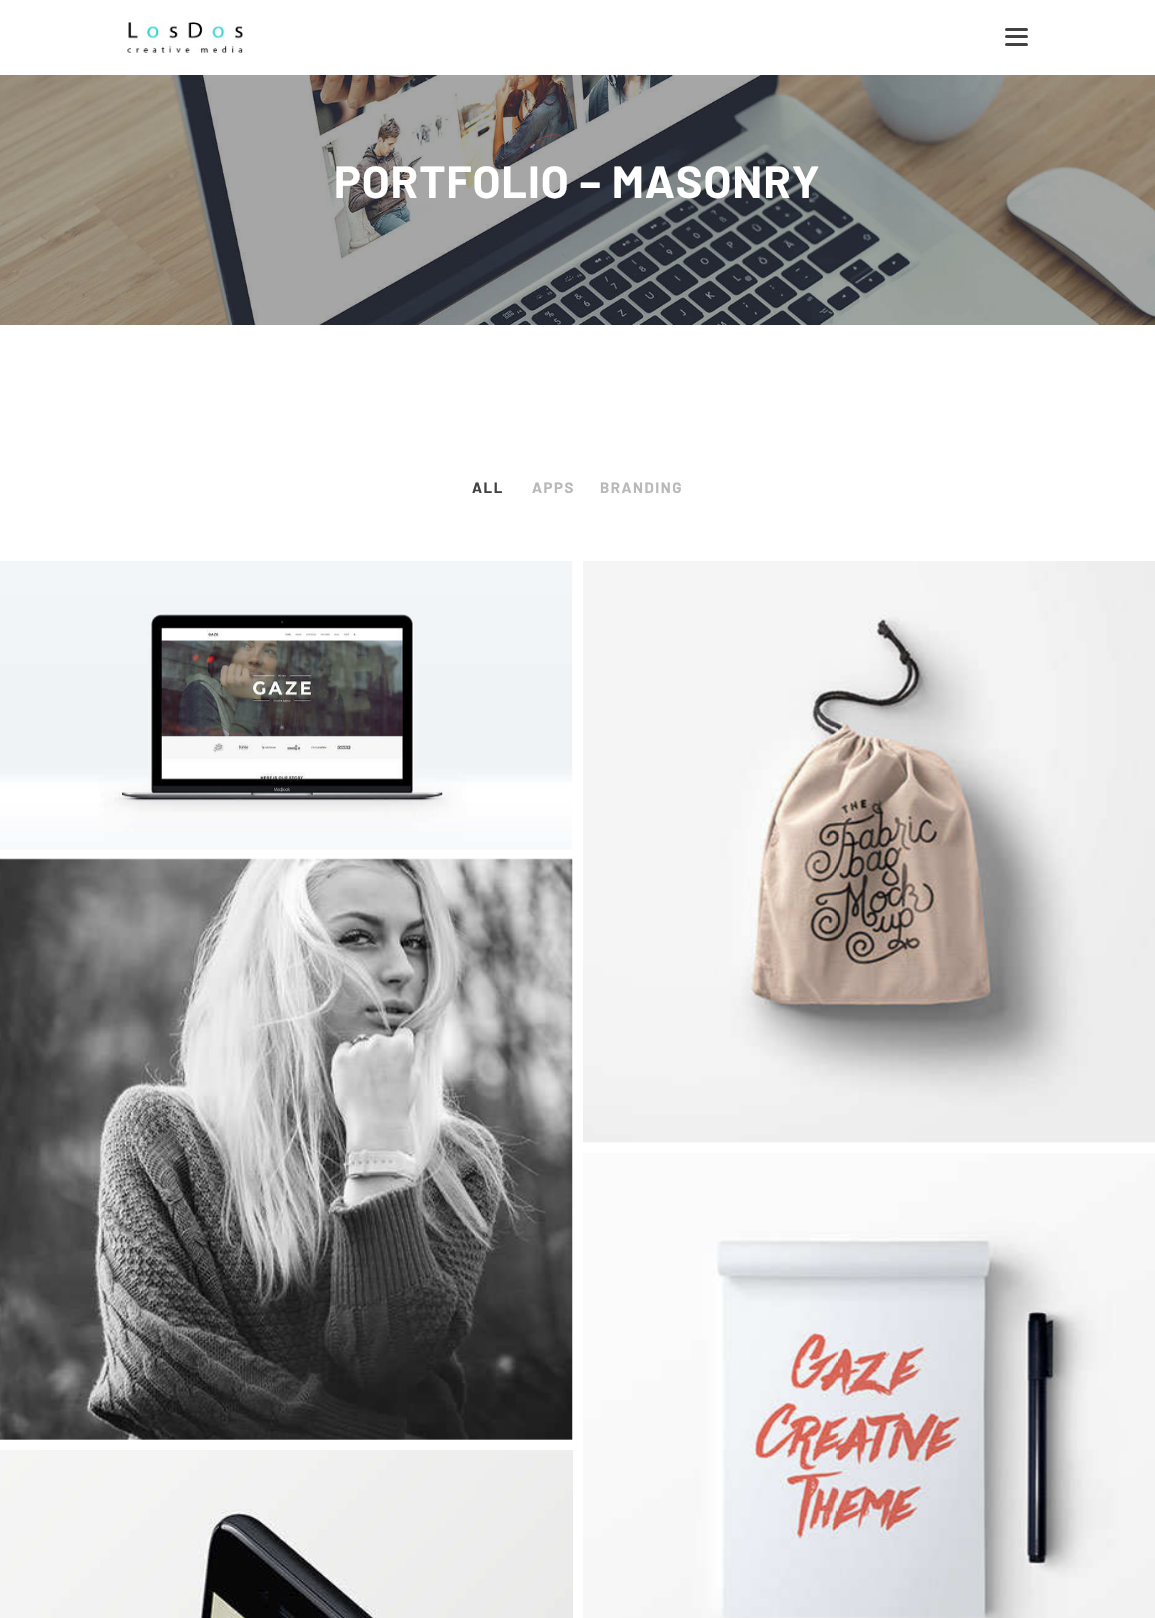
void draw(SkCanvas* canvas) {
    SkPaint paint;
    paint.setAntiAlias(true);
    auto spacedText = [&](const char* s, float x, float y, const SkFont& font, const SkPaint& ink, float letter, float word) {
        std::vector<SkGlyphID> glyphs(font.countText(s, strlen(s), SkTextEncoding::kUTF8));
        std::vector<float> xs(glyphs.size());
        font.textToGlyphs(s, strlen(s), SkTextEncoding::kUTF8, glyphs);
        font.getXPos(glyphs, xs, x);
        float extra = 0;
        for (size_t i = 0; i < glyphs.size(); i++) {
            xs[i] += extra;
            extra += letter + word * (glyphs[i] == font.unicharToGlyph(' '));
        }
        canvas->drawTextBlob(SkTextBlob::MakeFromPosHGlyphs(glyphs, xs, y, font), 0, 0, ink);
    };
    canvas->clear(0xFFFFFFFF);
    canvas->drawImageRect(SkImages::DeferredFromEncodedData(SkData::MakeFromFileName("img1.png")), SkRect::MakeXYWH(127, 22, 116, 31), SkSamplingOptions());
    paint.setColor(0xFF424242);
    canvas->drawRoundRect(SkRect::MakeXYWH(1005, 28, 23, 3), 1.5f, 1.5f, paint);
    canvas->drawRoundRect(SkRect::MakeXYWH(1005, 35, 23, 3), 1.5f, 1.5f, paint);
    canvas->drawRoundRect(SkRect::MakeXYWH(1005, 43, 23, 3), 1.5f, 1.5f, paint);
    canvas->drawImageRect(SkImages::DeferredFromEncodedData(SkData::MakeFromFileName("img2.png")), SkRect::MakeXYWH(0, 75, 1155, 250), SkSamplingOptions());
    SkFont font1(fontMgr->matchFamilyStyle("Barlow", SkFontStyle::Bold()), 45);
    font1.setSubpixel(true);
    paint.setColor(0xFFFFFFFF);
    spacedText("PORTFOLIO – MASONRY", 334, 198, font1, paint, 0.9f, 0);
    SkFont font2(fontMgr->matchFamilyStyle("Barlow", SkFontStyle::Bold()), 15);
    font2.setSubpixel(true);
    paint.setColor(0xFF424242);
    spacedText("ALL", 472, 493, font2, paint, 1.5f, 0);
    paint.setColor(0xFFB9B9B9);
    spacedText("APPS", 532, 493, font2, paint, 1.5f, 0);
    spacedText("BRANDING", 600, 493, font2, paint, 1.5f, 0);
    canvas->drawImageRect(SkImages::DeferredFromEncodedData(SkData::MakeFromFileName("img3.png")), SkRect::MakeXYWH(0, 561, 573, 289), SkSamplingOptions());
    canvas->drawImageRect(SkImages::DeferredFromEncodedData(SkData::MakeFromFileName("img4.png")), SkRect::MakeXYWH(583, 561, 572, 582), SkSamplingOptions());
    canvas->drawImageRect(SkImages::DeferredFromEncodedData(SkData::MakeFromFileName("img5.png")), SkRect::MakeXYWH(0, 858, 573, 582), SkSamplingOptions());
    canvas->drawImageRect(SkImages::DeferredFromEncodedData(SkData::MakeFromFileName("img6.png")), SkRect::MakeXYWH(583, 1153, 572, 465), SkSamplingOptions());
    canvas->drawImageRect(SkImages::DeferredFromEncodedData(SkData::MakeFromFileName("img7.png")), SkRect::MakeXYWH(0, 1450, 573, 168), SkSamplingOptions());
}
